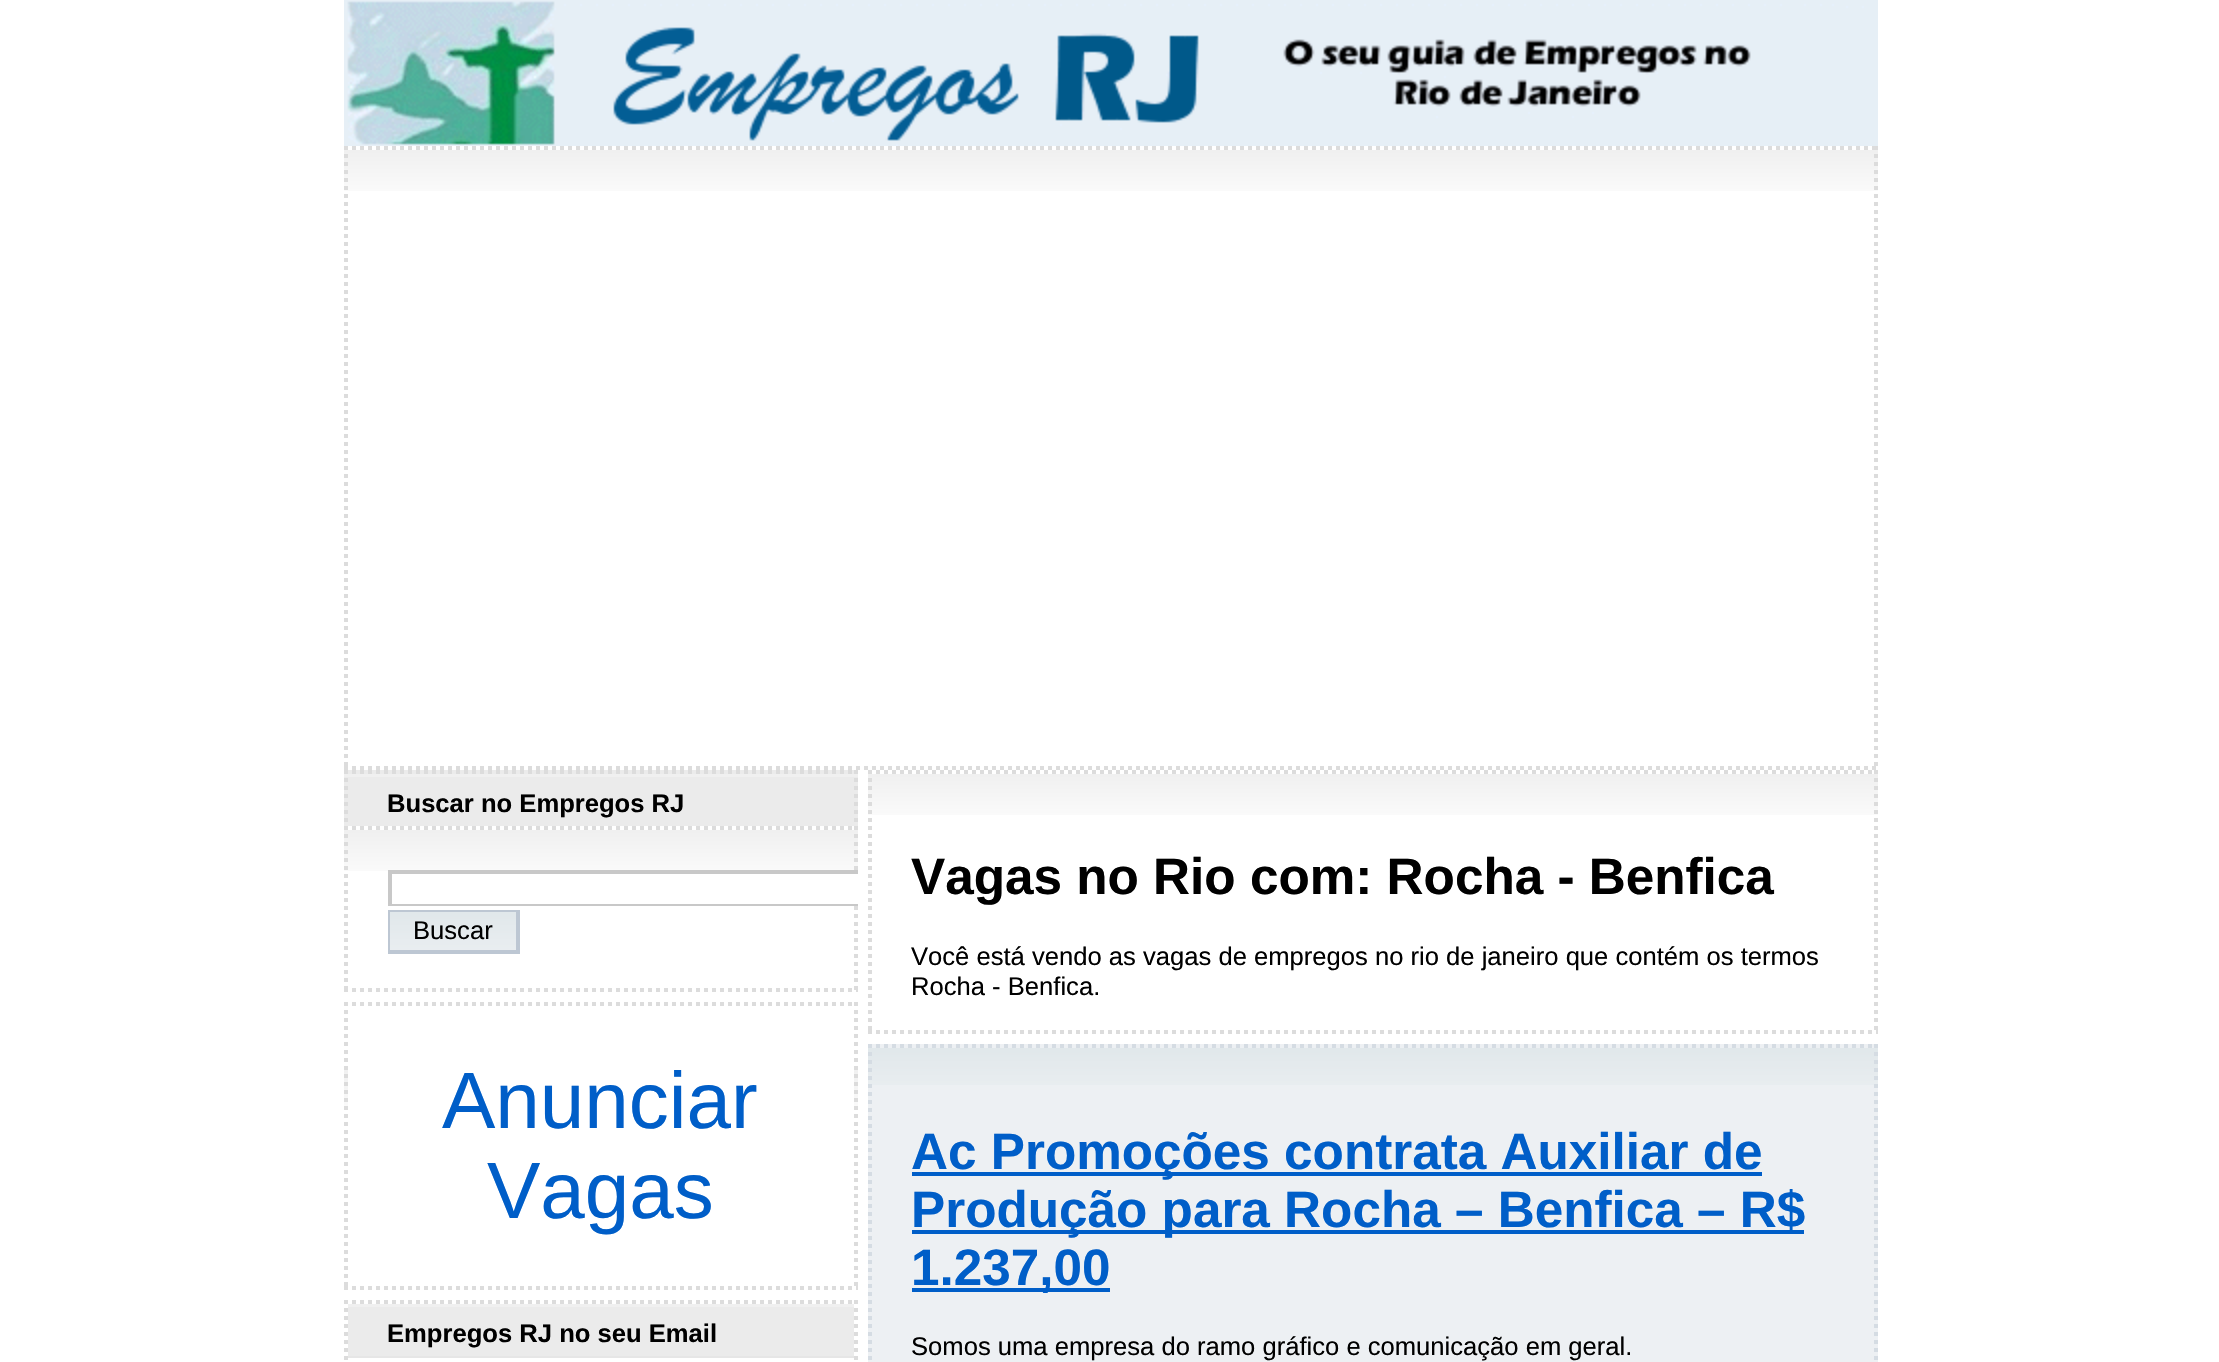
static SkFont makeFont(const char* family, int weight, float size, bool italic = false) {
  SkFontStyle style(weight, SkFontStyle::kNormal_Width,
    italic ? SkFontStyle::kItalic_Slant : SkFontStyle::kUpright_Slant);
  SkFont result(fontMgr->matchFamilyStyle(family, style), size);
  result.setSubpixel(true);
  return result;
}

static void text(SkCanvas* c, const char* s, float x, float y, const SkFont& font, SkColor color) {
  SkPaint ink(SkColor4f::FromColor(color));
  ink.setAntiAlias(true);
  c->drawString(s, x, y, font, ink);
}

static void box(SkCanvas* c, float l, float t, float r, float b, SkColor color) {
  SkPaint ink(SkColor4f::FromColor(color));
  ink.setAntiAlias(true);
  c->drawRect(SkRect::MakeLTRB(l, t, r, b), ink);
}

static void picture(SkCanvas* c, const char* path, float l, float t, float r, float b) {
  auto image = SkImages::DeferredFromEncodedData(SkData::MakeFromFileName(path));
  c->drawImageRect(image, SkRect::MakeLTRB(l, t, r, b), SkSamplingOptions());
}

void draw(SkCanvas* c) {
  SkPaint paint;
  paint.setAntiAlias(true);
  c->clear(0xffffffff);
  box(c, 344, 0, 1878, 146, 0xffe6eff6);
  picture(c, "img_01.png", 347, 1, 1864, 146);
  picture(c, "img_02.png", 344, 150, 1878, 191);
  paint.setStyle(SkPaint::kStroke_Style);
  paint.setStrokeWidth(4);
  paint.setColor(0xffdcdcdc);
  paint.setPathEffect(SkDashPathEffect::Make({{4, 4}}, 0));
  c->drawPath(SkPathBuilder().moveTo(344, 148).lineTo(1878, 148).detach(), paint);
  paint.setPathEffect(nullptr);
  paint.setPathEffect(SkDashPathEffect::Make({{4, 4}}, 0));
  c->drawPath(SkPathBuilder().moveTo(1876, 146).lineTo(1876, 770).detach(), paint);
  paint.setPathEffect(nullptr);
  paint.setPathEffect(SkDashPathEffect::Make({{4, 4}}, 0));
  c->drawPath(SkPathBuilder().moveTo(344, 768).lineTo(1878, 768).detach(), paint);
  paint.setPathEffect(nullptr);
  paint.setPathEffect(SkDashPathEffect::Make({{4, 4}}, 0));
  c->drawPath(SkPathBuilder().moveTo(346, 146).lineTo(346, 770).detach(), paint);
  paint.setPathEffect(nullptr);
  box(c, 344, 770, 858, 826, 0xffebebeb);
  box(c, 344, 774, 858, 777, 0xfff0f0f0);
  paint.setPathEffect(SkDashPathEffect::Make({{4, 4}}, 0));
  c->drawPath(SkPathBuilder().moveTo(344, 772).lineTo(858, 772).detach(), paint);
  paint.setPathEffect(nullptr);
  paint.setPathEffect(SkDashPathEffect::Make({{4, 4}}, 0));
  c->drawPath(SkPathBuilder().moveTo(856, 770).lineTo(856, 826).detach(), paint);
  paint.setPathEffect(nullptr);
  paint.setPathEffect(SkDashPathEffect::Make({{4, 4}}, 0));
  c->drawPath(SkPathBuilder().moveTo(346, 770).lineTo(346, 826).detach(), paint);
  paint.setPathEffect(nullptr);
  SkFont face1 = makeFont("Liberation Sans", 700, 25.6f);
  text(c, "Buscar no Empregos RJ", 387, 812, face1, 0xff000000);
  picture(c, "img_03.png", 344, 830, 858, 871);
  paint.setPathEffect(SkDashPathEffect::Make({{4, 4}}, 0));
  c->drawPath(SkPathBuilder().moveTo(344, 828).lineTo(858, 828).detach(), paint);
  paint.setPathEffect(nullptr);
  paint.setPathEffect(SkDashPathEffect::Make({{4, 4}}, 0));
  c->drawPath(SkPathBuilder().moveTo(856, 826).lineTo(856, 992).detach(), paint);
  paint.setPathEffect(nullptr);
  paint.setPathEffect(SkDashPathEffect::Make({{4, 4}}, 0));
  c->drawPath(SkPathBuilder().moveTo(344, 990).lineTo(858, 990).detach(), paint);
  paint.setPathEffect(nullptr);
  paint.setPathEffect(SkDashPathEffect::Make({{4, 4}}, 0));
  c->drawPath(SkPathBuilder().moveTo(346, 826).lineTo(346, 992).detach(), paint);
  paint.setPathEffect(nullptr);
  box(c, 854, 874, 858, 902, 0xffffffff);
  box(c, 388, 870, 858, 874, 0xffc8c8c8);
  box(c, 388, 904, 858, 906, 0xffc8c8c8);
  box(c, 388, 870, 392, 906, 0xffc8c8c8);
  picture(c, "img_04.png", 390, 912, 516, 950);
  box(c, 388, 910, 520, 912, 0xffbdc7d3);
  box(c, 516, 910, 520, 954, 0xffbdc7d3);
  box(c, 388, 950, 520, 954, 0xffbdc7d3);
  box(c, 388, 910, 390, 954, 0xffbdc7d3);
  SkFont face2 = makeFont("Liberation Sans", 400, 25.6f);
  text(c, "Buscar", 413, 939, face2, 0xff000000);
  picture(c, "img_05.png", 344, 1070, 858, 1106);
  paint.setPathEffect(SkDashPathEffect::Make({{4, 4}}, 0));
  c->drawPath(SkPathBuilder().moveTo(344, 1004).lineTo(858, 1004).detach(), paint);
  paint.setPathEffect(nullptr);
  paint.setPathEffect(SkDashPathEffect::Make({{4, 4}}, 0));
  c->drawPath(SkPathBuilder().moveTo(856, 1002).lineTo(856, 1290).detach(), paint);
  paint.setPathEffect(nullptr);
  paint.setPathEffect(SkDashPathEffect::Make({{4, 4}}, 0));
  c->drawPath(SkPathBuilder().moveTo(344, 1288).lineTo(858, 1288).detach(), paint);
  paint.setPathEffect(nullptr);
  paint.setPathEffect(SkDashPathEffect::Make({{4, 4}}, 0));
  c->drawPath(SkPathBuilder().moveTo(346, 1002).lineTo(346, 1290).detach(), paint);
  paint.setPathEffect(nullptr);
  box(c, 348, 1070, 854, 1106, 0xffffffff);
  SkFont face3 = makeFont("Liberation Sans", 400, 80);
  text(c, "Anunciar", 442, 1128, face3, 0xff005ec8);
  text(c, "Vagas", 487, 1218, face3, 0xff005ec8);
  paint.setPathEffect(SkDashPathEffect::Make({{4, 4}}, 0));
  c->drawPath(SkPathBuilder().moveTo(344, 1302).lineTo(858, 1302).detach(), paint);
  paint.setPathEffect(nullptr);
  paint.setPathEffect(SkDashPathEffect::Make({{4, 4}}, 0));
  c->drawPath(SkPathBuilder().moveTo(856, 1300).lineTo(856, 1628).detach(), paint);
  paint.setPathEffect(nullptr);
  paint.setPathEffect(SkDashPathEffect::Make({{4, 4}}, 0));
  c->drawPath(SkPathBuilder().moveTo(346, 1300).lineTo(346, 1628).detach(), paint);
  paint.setPathEffect(nullptr);
  box(c, 348, 1307, 854, 1356, 0xffebebeb);
  box(c, 348, 1304, 854, 1307, 0xfff0f0f0);
  box(c, 348, 1356, 854, 1358, 0xffe6e6e6);
  text(c, "Empregos RJ no seu Email", 387, 1342, face1, 0xff000000);
  picture(c, "img_06.png", 868, 774, 1878, 815);
  paint.setPathEffect(SkDashPathEffect::Make({{4, 4}}, 0));
  c->drawPath(SkPathBuilder().moveTo(868, 772).lineTo(1878, 772).detach(), paint);
  paint.setPathEffect(nullptr);
  paint.setPathEffect(SkDashPathEffect::Make({{4, 4}}, 0));
  c->drawPath(SkPathBuilder().moveTo(1876, 770).lineTo(1876, 1034).detach(), paint);
  paint.setPathEffect(nullptr);
  paint.setPathEffect(SkDashPathEffect::Make({{4, 4}}, 0));
  c->drawPath(SkPathBuilder().moveTo(868, 1032).lineTo(1878, 1032).detach(), paint);
  paint.setPathEffect(nullptr);
  paint.setPathEffect(SkDashPathEffect::Make({{4, 4}}, 0));
  c->drawPath(SkPathBuilder().moveTo(870, 770).lineTo(870, 1034).detach(), paint);
  paint.setPathEffect(nullptr);
  SkFont face4 = makeFont("Liberation Sans", 700, 51.25f);
  text(c, "Vagas no Rio com: Rocha - Benfica", 911, 894, face4, 0xff000000);
  text(c, "Você está vendo as vagas de empregos no rio de janeiro que contém os termos", 911, 965, face2, 0xff000000);
  text(c, "Rocha - Benfica.", 911, 995, face2, 0xff000000);
  box(c, 868, 1044, 1878, 1362, 0xffedf0f3);
  picture(c, "img_07.png", 868, 1048, 1878, 1085);
  paint.setColor(0xffd5dce3);
  paint.setPathEffect(SkDashPathEffect::Make({{4, 4}}, 0));
  c->drawPath(SkPathBuilder().moveTo(868, 1046).lineTo(1878, 1046).detach(), paint);
  paint.setPathEffect(nullptr);
  paint.setPathEffect(SkDashPathEffect::Make({{4, 4}}, 0));
  c->drawPath(SkPathBuilder().moveTo(1876, 1044).lineTo(1876, 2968).detach(), paint);
  paint.setPathEffect(nullptr);
  paint.setPathEffect(SkDashPathEffect::Make({{4, 4}}, 0));
  c->drawPath(SkPathBuilder().moveTo(870, 1044).lineTo(870, 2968).detach(), paint);
  paint.setPathEffect(nullptr);
  box(c, 912, 1172, 1762, 1176, 0xff005ec8);
  text(c, "Ac Promoções contrata Auxiliar de", 911, 1169, face4, 0xff005ec8);
  box(c, 912, 1230, 1804, 1234, 0xff005ec8);
  text(c, "Produção para Rocha – Benfica – R$", 911, 1227, face4, 0xff005ec8);
  box(c, 912, 1288, 1110, 1292, 0xff005ec8);
  text(c, "1.237,00", 911, 1285, face4, 0xff005ec8);
  text(c, "Somos uma empresa do ramo gráfico e comunicação em geral.", 911, 1355, face2, 0xff000000);
}
